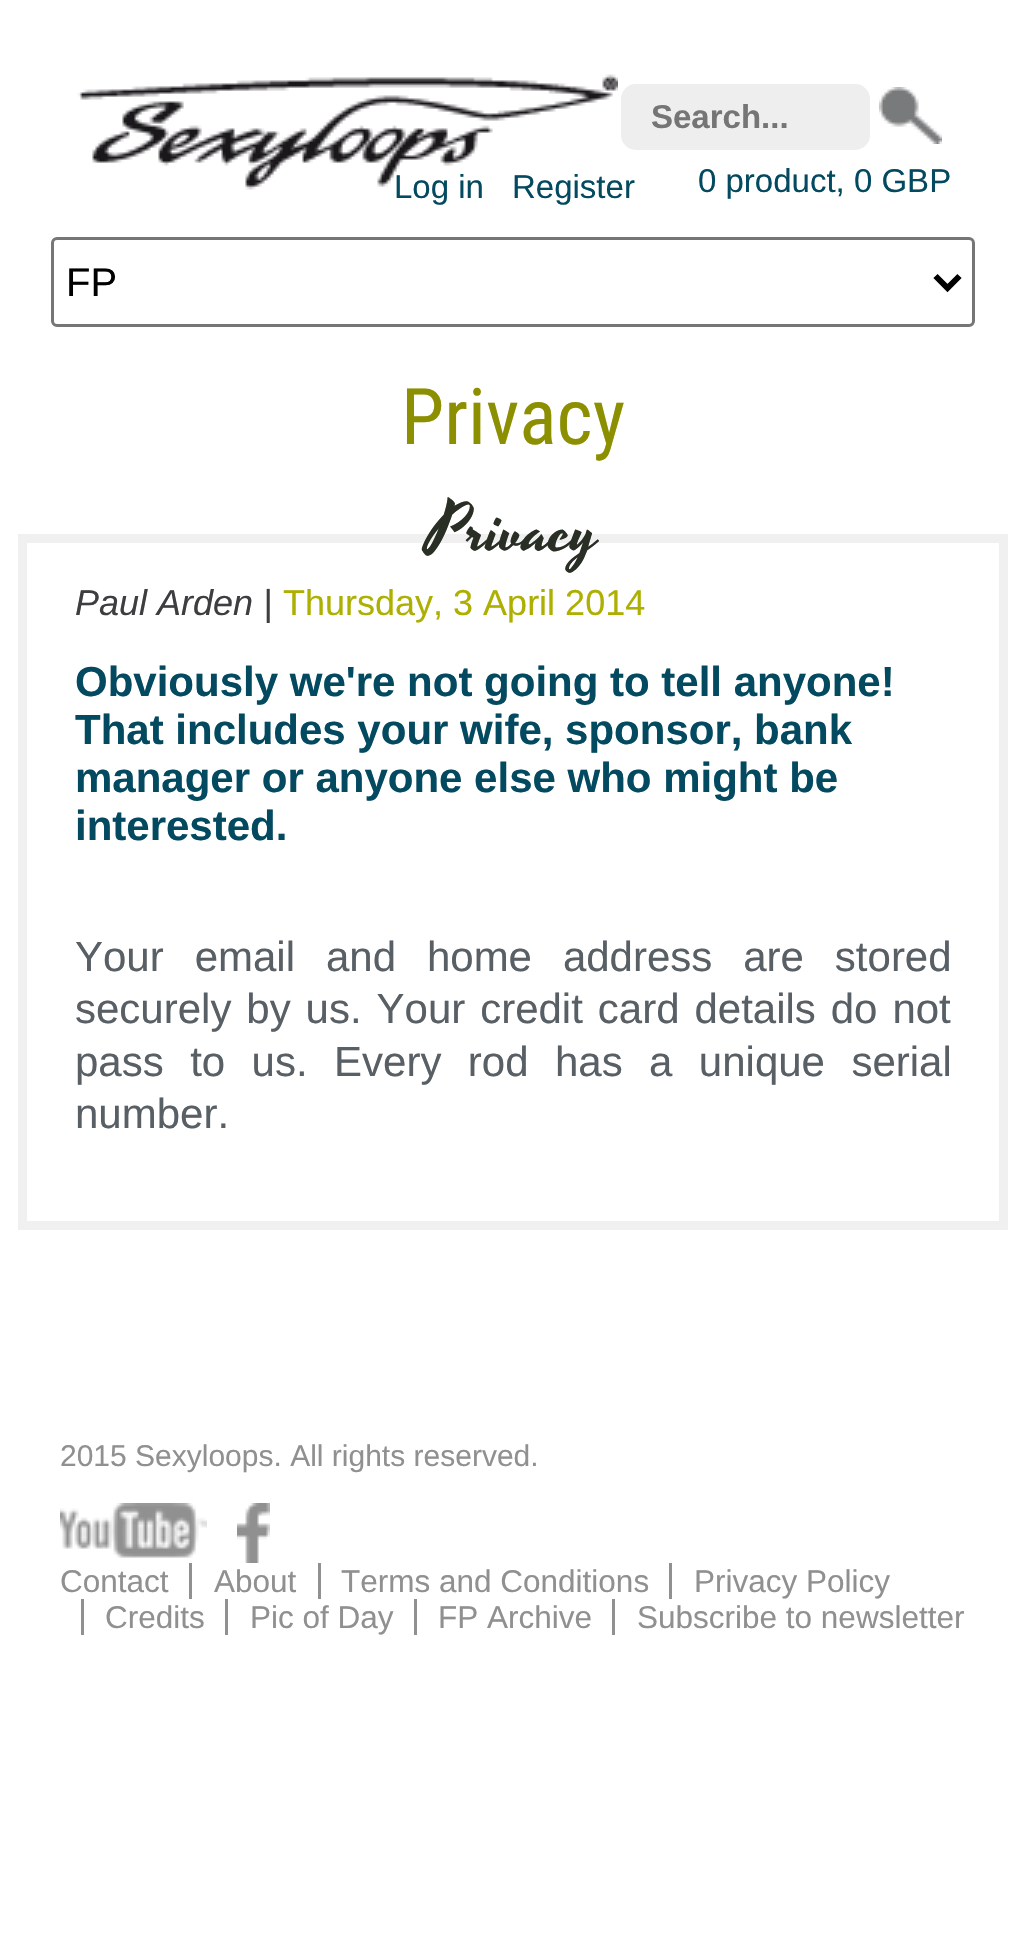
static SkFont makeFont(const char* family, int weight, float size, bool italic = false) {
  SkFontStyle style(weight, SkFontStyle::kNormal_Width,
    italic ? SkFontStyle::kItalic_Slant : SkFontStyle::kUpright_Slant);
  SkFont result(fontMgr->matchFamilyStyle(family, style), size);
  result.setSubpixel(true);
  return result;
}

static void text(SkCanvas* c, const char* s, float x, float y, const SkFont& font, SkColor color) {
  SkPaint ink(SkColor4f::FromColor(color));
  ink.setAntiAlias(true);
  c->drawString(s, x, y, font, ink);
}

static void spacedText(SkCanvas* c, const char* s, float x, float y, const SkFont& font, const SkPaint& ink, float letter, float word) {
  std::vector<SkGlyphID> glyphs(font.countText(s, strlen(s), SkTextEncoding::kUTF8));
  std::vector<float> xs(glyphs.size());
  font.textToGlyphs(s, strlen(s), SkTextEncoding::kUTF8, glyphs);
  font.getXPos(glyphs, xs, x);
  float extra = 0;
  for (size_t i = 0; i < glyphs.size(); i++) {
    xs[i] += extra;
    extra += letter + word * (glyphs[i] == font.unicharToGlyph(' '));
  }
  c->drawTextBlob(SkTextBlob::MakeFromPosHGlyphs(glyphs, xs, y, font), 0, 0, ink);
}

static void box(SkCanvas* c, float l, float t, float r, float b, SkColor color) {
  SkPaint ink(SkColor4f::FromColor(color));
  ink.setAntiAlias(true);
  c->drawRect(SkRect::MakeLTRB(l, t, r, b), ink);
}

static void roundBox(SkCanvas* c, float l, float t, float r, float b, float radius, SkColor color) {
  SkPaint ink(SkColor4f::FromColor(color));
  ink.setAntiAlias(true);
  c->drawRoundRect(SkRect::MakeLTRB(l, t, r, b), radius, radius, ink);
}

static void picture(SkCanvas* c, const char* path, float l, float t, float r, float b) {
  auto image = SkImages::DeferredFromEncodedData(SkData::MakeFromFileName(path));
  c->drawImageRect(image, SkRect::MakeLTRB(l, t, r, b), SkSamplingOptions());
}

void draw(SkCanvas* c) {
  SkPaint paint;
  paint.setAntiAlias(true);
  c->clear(0xffffffff);
  picture(c, "img_01.png", 78, 74, 618, 190);
  roundBox(c, 621, 84, 870, 150, 15, 0xffeeeeee);
  SkFont face1 = makeFont("Liberation Sans", 700, 33);
  text(c, "Search...", 651, 128, face1, 0xff757575);
  picture(c, "img_02.png", 879, 87, 942, 144);
  SkFont face2 = makeFont("Liberation Sans", 400, 33);
  text(c, "Log in", 394, 198, face2, 0xff034960);
  text(c, "Register", 512, 198, face2, 0xff034960);
  text(c, "0 product, 0 GBP", 698, 192, face2, 0xff034960);
  paint.setStyle(SkPaint::kStroke_Style);
  paint.setStrokeWidth(3);
  paint.setColor(0xff767676);
  c->drawRoundRect(SkRect::MakeLTRB(52.5f, 238.5f, 973.5f, 325.5f), 4.5f, 4.5f, paint);
  paint.setStrokeWidth(6);
  paint.setColor(0xff000000);
  c->drawPath(SkPathBuilder().moveTo(935.5f, 276).lineTo(947.5f, 288).lineTo(959.5f, 276).detach(), paint);
  SkFont face3 = makeFont("Liberation Sans", 400, 40);
  text(c, "FP", 66, 296, face3, 0xff000000);
  SkFont face4 = makeFont("Roboto Condensed", 400, 78);
  text(c, "Privacy", 401, 444, face4, 0xff8c8f00);
  paint.setStrokeWidth(9);
  paint.setColor(0xfff0f0f0);
  c->drawRect(SkRect::MakeLTRB(22.5f, 538.5f, 1003.5f, 1225.5f), paint);
  SkFont face5 = makeFont("Yesteryear", 400, 66);
  text(c, "Privacy", 427, 549, face5, 0xff2a2f25);
  SkFont face6 = makeFont("Liberation Sans", 400, 36, true);
  text(c, "Paul Arden |", 75, 615, face6, 0xff3d3e40);
  SkFont face7 = makeFont("Liberation Sans", 400, 36);
  text(c, "Thursday, 3 April 2014", 283, 615, face7, 0xffadb000);
  SkFont face8 = makeFont("Liberation Sans", 700, 42);
  text(c, "Obviously we're not going to tell anyone!", 75, 696, face8, 0xff034960);
  text(c, "That includes your wife, sponsor, bank", 75, 744, face8, 0xff034960);
  text(c, "manager or anyone else who might be", 75, 792, face8, 0xff034960);
  text(c, "interested.", 75, 840, face8, 0xff034960);
  SkFont face9 = makeFont("Liberation Sans", 400, 42);
  paint.setStyle(SkPaint::kFill_Style);
  paint.setColor(0xff585f65);
  spacedText(c, "Your email and home address are stored", 75, 971, face9, paint, 0, 19.25f);
  spacedText(c, "securely by us. Your credit card details do not", 75, 1023, face9, paint, 0, 3.25f);
  spacedText(c, "pass to us. Every rod has a unique serial", 75, 1076, face9, paint, 0, 14.75f);
  text(c, "number.", 75, 1128, face9, 0xff585f65);
  SkFont face10 = makeFont("Liberation Sans", 400, 30);
  text(c, "2015 Sexyloops. All rights reserved.", 60, 1466, face10, 0xff909090);
  picture(c, "img_03.png", 60, 1503, 207, 1558);
  picture(c, "img_04.png", 237, 1503, 270, 1563);
  SkFont face11 = makeFont("Liberation Sans", 400, 31.5f);
  text(c, "Contact", 60, 1592, face11, 0xff909090);
  box(c, 189, 1563, 192, 1599, 0xff909090);
  text(c, "About", 214, 1592, face11, 0xff909090);
  box(c, 318, 1563, 321, 1599, 0xff909090);
  text(c, "Terms and Conditions", 341, 1592, face11, 0xff909090);
  box(c, 669, 1563, 672, 1599, 0xff909090);
  text(c, "Privacy Policy", 694, 1592, face11, 0xff909090);
  box(c, 81, 1599, 84, 1635, 0xff909090);
  text(c, "Credits", 105, 1628, face11, 0xff909090);
  box(c, 225, 1599, 228, 1635, 0xff909090);
  text(c, "Pic of Day", 250, 1628, face11, 0xff909090);
  box(c, 414, 1599, 417, 1635, 0xff909090);
  text(c, "FP Archive", 438, 1628, face11, 0xff909090);
  box(c, 612, 1599, 615, 1635, 0xff909090);
  text(c, "Subscribe to newsletter", 637, 1628, face11, 0xff909090);
}
